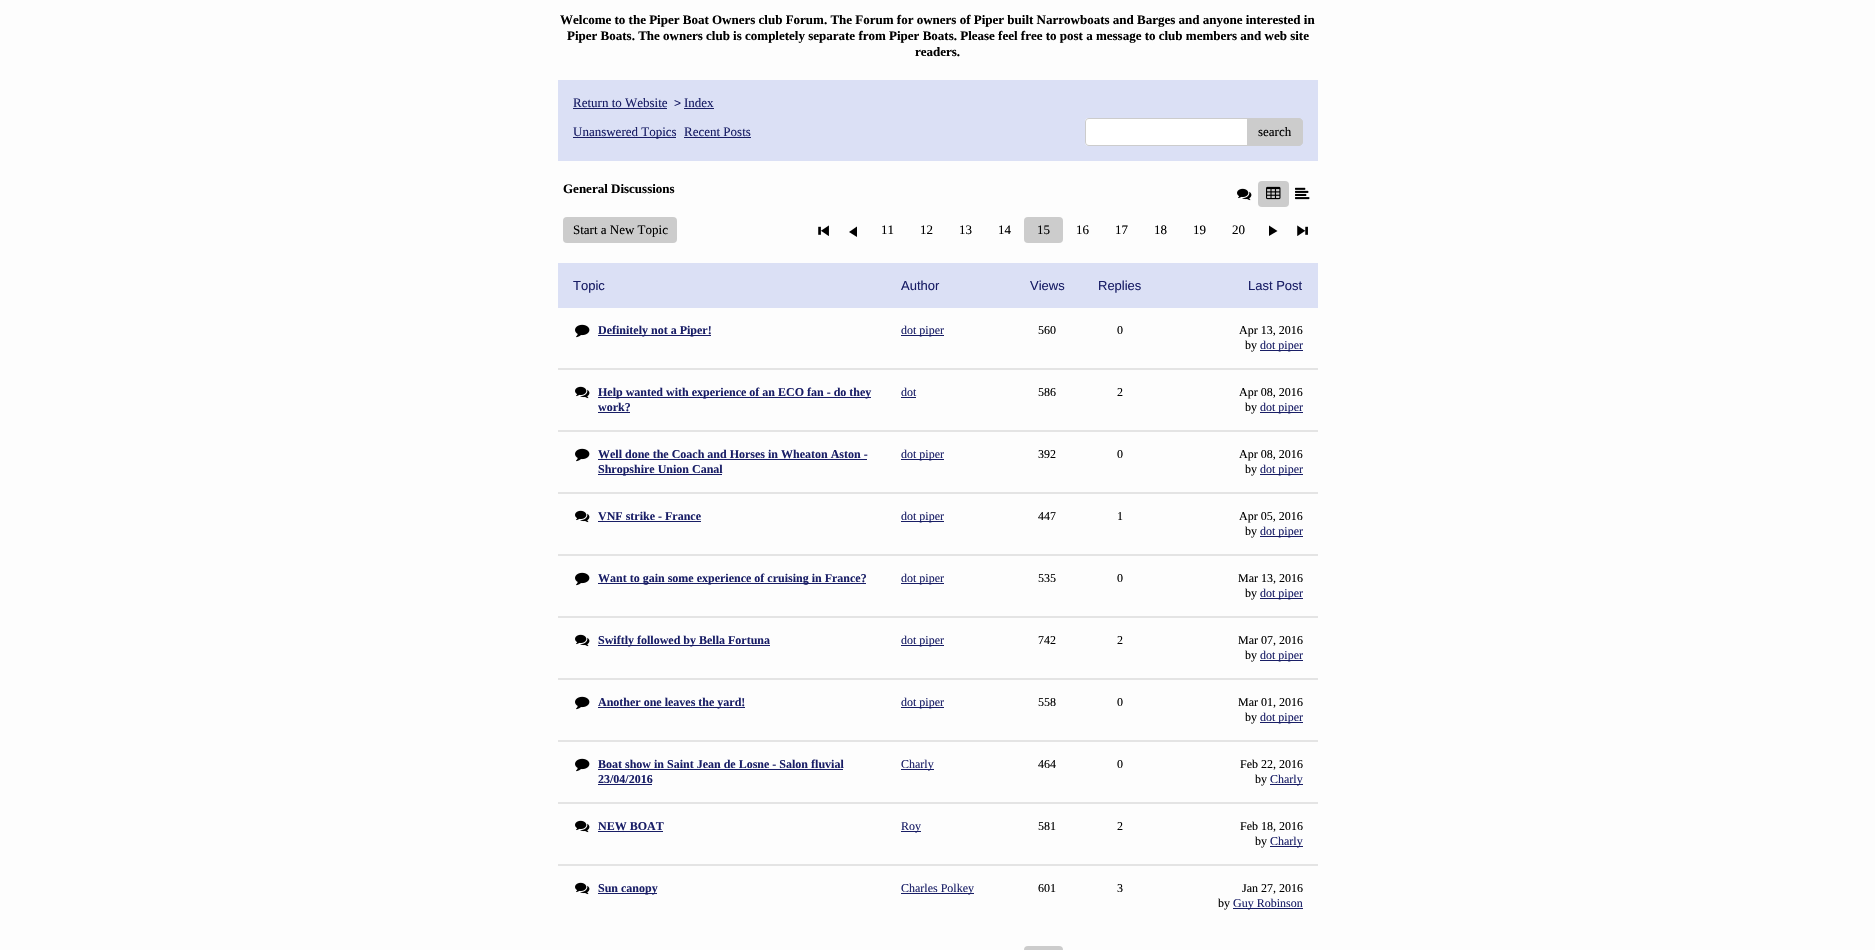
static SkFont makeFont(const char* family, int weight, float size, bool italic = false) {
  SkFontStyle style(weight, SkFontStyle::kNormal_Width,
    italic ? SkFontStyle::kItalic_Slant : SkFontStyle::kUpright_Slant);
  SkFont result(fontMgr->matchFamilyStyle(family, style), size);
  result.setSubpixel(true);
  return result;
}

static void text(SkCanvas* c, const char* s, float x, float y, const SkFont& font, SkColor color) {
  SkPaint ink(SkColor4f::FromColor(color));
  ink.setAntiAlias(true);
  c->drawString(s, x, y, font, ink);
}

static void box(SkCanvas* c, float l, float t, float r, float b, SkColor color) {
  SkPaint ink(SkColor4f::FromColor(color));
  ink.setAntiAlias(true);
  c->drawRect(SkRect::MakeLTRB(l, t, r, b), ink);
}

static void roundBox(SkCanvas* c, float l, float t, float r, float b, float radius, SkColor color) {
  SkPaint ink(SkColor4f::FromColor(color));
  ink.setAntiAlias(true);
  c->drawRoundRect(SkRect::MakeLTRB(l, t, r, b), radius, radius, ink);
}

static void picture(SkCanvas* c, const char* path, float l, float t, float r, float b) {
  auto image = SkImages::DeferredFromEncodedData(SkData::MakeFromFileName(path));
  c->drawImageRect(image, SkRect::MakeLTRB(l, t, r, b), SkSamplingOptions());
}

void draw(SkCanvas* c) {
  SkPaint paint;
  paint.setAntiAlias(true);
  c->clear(0xfffdfdfd);
  SkFont face1 = makeFont("Liberation Serif", 700, 13);
  text(c, "Welcome to the Piper Boat Owners club Forum. The Forum for owners of Piper built Narrowboats and Barges and anyone interested in", 560, 24, face1, 0xff000000);
  text(c, "Piper Boats. The owners club is completely separate from Piper Boats. Please feel free to post a message to club members and web site", 567, 40, face1, 0xff000000);
  text(c, "readers.", 915, 56, face1, 0xff000000);
  box(c, 558, 80, 1318, 161, 0xffdbe0f5);
  SkFont face2 = makeFont("Liberation Serif", 400, 13);
  text(c, "Return to Website", 573, 107, face2, 0xff191e66);
  box(c, 573, 108, 667, 109, 0xff191e66);
  SkFont face3 = makeFont("Liberation Sans", 400, 12);
  text(c, ">", 674, 107, face3, 0xff191e66);
  text(c, "Index", 684, 107, face2, 0xff191e66);
  box(c, 684, 108, 714, 109, 0xff191e66);
  box(c, 573, 137, 676, 138, 0xff191e66);
  text(c, "Unanswered Topics", 573, 136, face2, 0xff191e66);
  text(c, "Recent Posts", 684, 136, face2, 0xff191e66);
  box(c, 684, 137, 751, 138, 0xff191e66);
  roundBox(c, 1085, 118, 1293, 146, 4, 0xffffffff);
  paint.setColor(0xffcccccc);
  c->drawPath(SkPathBuilder(SkPathFillType::kEvenOdd).moveTo(1089, 118).lineTo(1289, 118).cubicTo(1291, 118, 1293, 120, 1293, 122).lineTo(1293, 142).cubicTo(1293, 144, 1291, 146, 1289, 146).lineTo(1089, 146).cubicTo(1087, 146, 1085, 144, 1085, 142).lineTo(1085, 122).cubicTo(1085, 120, 1087, 118, 1089, 118).close().moveTo(1089, 119).lineTo(1289, 119).cubicTo(1291, 119, 1293, 120, 1293, 122).lineTo(1293, 142).cubicTo(1293, 144, 1291, 145, 1289, 145).lineTo(1089, 145).cubicTo(1087, 145, 1086, 144, 1086, 142).lineTo(1086, 122).cubicTo(1086, 120, 1087, 119, 1089, 119).close().detach(), paint);
  c->drawPath(SkPathBuilder().moveTo(1247.5f, 118.5f).lineTo(1299, 118.5f).cubicTo(1301, 118.5f, 1302.5f, 120, 1302.5f, 122).lineTo(1302.5f, 142).cubicTo(1302.5f, 144, 1301, 145.5f, 1299, 145.5f).lineTo(1247.5f, 145.5f).close().detach(), paint);
  paint.setStyle(SkPaint::kStroke_Style);
  paint.setStrokeWidth(1);
  c->drawPath(SkPathBuilder().moveTo(1247.5f, 118.5f).lineTo(1299, 118.5f).cubicTo(1301, 118.5f, 1302.5f, 120, 1302.5f, 122).lineTo(1302.5f, 142).cubicTo(1302.5f, 144, 1301, 145.5f, 1299, 145.5f).lineTo(1247.5f, 145.5f).close().detach(), paint);
  text(c, "search", 1258, 136, face2, 0xff000000);
  text(c, "General Discussions", 563, 193, face1, 0xff000000);
  picture(c, "img_01.png", 1237, 188, 1252, 201);
  roundBox(c, 1258, 181, 1289, 207, 4, 0xffcccccc);
  picture(c, "img_02.png", 1266, 186, 1281, 200);
  picture(c, "img_03.png", 1295, 187, 1310, 200);
  roundBox(c, 563, 217, 677, 243, 4, 0xffcccccc);
  text(c, "Start a New Topic", 573, 234, face2, 0xff000000);
  picture(c, "img_04.png", 818, 225, 829, 236);
  paint.setStyle(SkPaint::kFill_Style);
  paint.setColor(0xff000000);
  c->drawPath(SkPathBuilder().moveTo(857, 237).lineTo(849, 232).lineTo(857, 226.5f).close().detach(), paint);
  text(c, "11", 881, 234, face2, 0xff000000);
  text(c, "12", 920, 234, face2, 0xff000000);
  text(c, "13", 959, 234, face2, 0xff000000);
  text(c, "14", 998, 234, face2, 0xff000000);
  roundBox(c, 1024, 217, 1063, 243, 4, 0xffcccccc);
  text(c, "15", 1037, 234, face2, 0xff000000);
  text(c, "16", 1076, 234, face2, 0xff000000);
  text(c, "17", 1115, 234, face2, 0xff000000);
  text(c, "18", 1154, 234, face2, 0xff000000);
  text(c, "19", 1193, 234, face2, 0xff000000);
  text(c, "20", 1232, 234, face2, 0xff000000);
  c->drawPath(SkPathBuilder().moveTo(1269, 225.5f).lineTo(1277.5f, 231).lineTo(1269, 236).close().detach(), paint);
  picture(c, "img_05.png", 1297, 225, 1308, 236);
  box(c, 558, 263, 1318, 308, 0xffdbe0f5);
  SkFont face4 = makeFont("Liberation Sans", 400, 13);
  text(c, "Topic", 573, 290, face4, 0xff191e66);
  text(c, "Author", 901, 290, face4, 0xff191e66);
  text(c, "Views", 1030, 290, face4, 0xff191e66);
  text(c, "Replies", 1098, 290, face4, 0xff191e66);
  text(c, "Last Post", 1248, 290, face4, 0xff191e66);
  box(c, 558, 368, 1318, 370, 0xffe4e4e4);
  picture(c, "img_06.png", 575, 324, 590, 338);
  box(c, 598, 335, 711, 336, 0xff191e66);
  SkFont face5 = makeFont("Liberation Serif", 700, 12);
  text(c, "Definitely not a Piper!", 598, 334, face5, 0xff191e66);
  box(c, 901, 335, 944, 336, 0xff191e66);
  SkFont face6 = makeFont("Liberation Serif", 400, 12);
  text(c, "dot piper", 901, 334, face6, 0xff191e66);
  text(c, "560", 1038, 334, face6, 0xff000000);
  text(c, "0", 1117, 334, face6, 0xff000000);
  text(c, "Apr 13, 2016", 1239, 334, face6, 0xff000000);
  text(c, "by", 1245, 349, face6, 0xff000000);
  box(c, 1260, 350, 1303, 351, 0xff191e66);
  text(c, "dot piper", 1260, 349, face6, 0xff191e66);
  box(c, 558, 430, 1318, 432, 0xffe4e4e4);
  picture(c, "img_01.png", 575, 386, 590, 399);
  box(c, 598, 397, 871, 398, 0xff191e66);
  text(c, "Help wanted with experience of an ECO fan - do they", 598, 396, face5, 0xff191e66);
  text(c, "work?", 598, 411, face5, 0xff191e66);
  box(c, 598, 412, 630, 413, 0xff191e66);
  text(c, "dot", 901, 396, face6, 0xff191e66);
  box(c, 901, 397, 916, 398, 0xff191e66);
  text(c, "586", 1038, 396, face6, 0xff000000);
  text(c, "2", 1117, 396, face6, 0xff000000);
  text(c, "Apr 08, 2016", 1239, 396, face6, 0xff000000);
  text(c, "by", 1245, 411, face6, 0xff000000);
  box(c, 1260, 412, 1303, 413, 0xff191e66);
  text(c, "dot piper", 1260, 411, face6, 0xff191e66);
  box(c, 558, 492, 1318, 494, 0xffe4e4e4);
  picture(c, "img_06.png", 575, 448, 590, 462);
  text(c, "Well done the Coach and Horses in Wheaton Aston -", 598, 458, face5, 0xff191e66);
  box(c, 598, 459, 867, 460, 0xff191e66);
  box(c, 598, 474, 722, 475, 0xff191e66);
  text(c, "Shropshire Union Canal", 598, 473, face5, 0xff191e66);
  box(c, 901, 459, 944, 460, 0xff191e66);
  text(c, "dot piper", 901, 458, face6, 0xff191e66);
  text(c, "392", 1038, 458, face6, 0xff000000);
  text(c, "0", 1117, 458, face6, 0xff000000);
  text(c, "Apr 08, 2016", 1239, 458, face6, 0xff000000);
  text(c, "by", 1245, 473, face6, 0xff000000);
  box(c, 1260, 474, 1303, 475, 0xff191e66);
  text(c, "dot piper", 1260, 473, face6, 0xff191e66);
  box(c, 558, 554, 1318, 556, 0xffe4e4e4);
  picture(c, "img_01.png", 575, 510, 590, 523);
  text(c, "VNF strike - France", 598, 520, face5, 0xff191e66);
  box(c, 598, 521, 701, 522, 0xff191e66);
  box(c, 901, 521, 944, 522, 0xff191e66);
  text(c, "dot piper", 901, 520, face6, 0xff191e66);
  text(c, "447", 1038, 520, face6, 0xff000000);
  text(c, "1", 1117, 520, face6, 0xff000000);
  text(c, "Apr 05, 2016", 1239, 520, face6, 0xff000000);
  text(c, "by", 1245, 535, face6, 0xff000000);
  box(c, 1260, 536, 1303, 537, 0xff191e66);
  text(c, "dot piper", 1260, 535, face6, 0xff191e66);
  box(c, 558, 616, 1318, 618, 0xffe4e4e4);
  picture(c, "img_06.png", 575, 572, 590, 586);
  box(c, 598, 583, 866, 584, 0xff191e66);
  text(c, "Want to gain some experience of cruising in France?", 598, 582, face5, 0xff191e66);
  box(c, 901, 583, 944, 584, 0xff191e66);
  text(c, "dot piper", 901, 582, face6, 0xff191e66);
  text(c, "535", 1038, 582, face6, 0xff000000);
  text(c, "0", 1117, 582, face6, 0xff000000);
  text(c, "Mar 13, 2016", 1238, 582, face6, 0xff000000);
  text(c, "by", 1245, 597, face6, 0xff000000);
  box(c, 1260, 598, 1303, 599, 0xff191e66);
  text(c, "dot piper", 1260, 597, face6, 0xff191e66);
  box(c, 558, 678, 1318, 680, 0xffe4e4e4);
  picture(c, "img_01.png", 575, 634, 590, 647);
  box(c, 598, 645, 770, 646, 0xff191e66);
  text(c, "Swiftly followed by Bella Fortuna", 598, 644, face5, 0xff191e66);
  box(c, 901, 645, 944, 646, 0xff191e66);
  text(c, "dot piper", 901, 644, face6, 0xff191e66);
  text(c, "742", 1038, 644, face6, 0xff000000);
  text(c, "2", 1117, 644, face6, 0xff000000);
  text(c, "Mar 07, 2016", 1238, 644, face6, 0xff000000);
  text(c, "by", 1245, 659, face6, 0xff000000);
  box(c, 1260, 660, 1303, 661, 0xff191e66);
  text(c, "dot piper", 1260, 659, face6, 0xff191e66);
  box(c, 558, 740, 1318, 742, 0xffe4e4e4);
  picture(c, "img_06.png", 575, 696, 590, 710);
  box(c, 598, 707, 745, 708, 0xff191e66);
  text(c, "Another one leaves the yard!", 598, 706, face5, 0xff191e66);
  box(c, 901, 707, 944, 708, 0xff191e66);
  text(c, "dot piper", 901, 706, face6, 0xff191e66);
  text(c, "558", 1038, 706, face6, 0xff000000);
  text(c, "0", 1117, 706, face6, 0xff000000);
  text(c, "Mar 01, 2016", 1238, 706, face6, 0xff000000);
  text(c, "by", 1245, 721, face6, 0xff000000);
  box(c, 1260, 722, 1303, 723, 0xff191e66);
  text(c, "dot piper", 1260, 721, face6, 0xff191e66);
  box(c, 558, 802, 1318, 804, 0xffe4e4e4);
  picture(c, "img_06.png", 575, 758, 590, 772);
  text(c, "Boat show in Saint Jean de Losne - Salon fluvial", 598, 768, face5, 0xff191e66);
  box(c, 598, 769, 843, 770, 0xff191e66);
  text(c, "23/04/2016", 598, 783, face5, 0xff191e66);
  box(c, 598, 784, 652, 785, 0xff191e66);
  box(c, 901, 769, 934, 770, 0xff191e66);
  text(c, "Charly", 901, 768, face6, 0xff191e66);
  text(c, "464", 1038, 768, face6, 0xff000000);
  text(c, "0", 1117, 768, face6, 0xff000000);
  text(c, "Feb 22, 2016", 1240, 768, face6, 0xff000000);
  text(c, "by", 1255, 783, face6, 0xff000000);
  box(c, 1270, 784, 1303, 785, 0xff191e66);
  text(c, "Charly", 1270, 783, face6, 0xff191e66);
  box(c, 558, 864, 1318, 866, 0xffe4e4e4);
  picture(c, "img_01.png", 575, 820, 590, 833);
  text(c, "NEW BOAT", 598, 830, face5, 0xff191e66);
  box(c, 598, 831, 663, 832, 0xff191e66);
  box(c, 901, 831, 921, 832, 0xff191e66);
  text(c, "Roy", 901, 830, face6, 0xff191e66);
  text(c, "581", 1038, 830, face6, 0xff000000);
  text(c, "2", 1117, 830, face6, 0xff000000);
  text(c, "Feb 18, 2016", 1240, 830, face6, 0xff000000);
  text(c, "by", 1255, 845, face6, 0xff000000);
  box(c, 1270, 846, 1303, 847, 0xff191e66);
  text(c, "Charly", 1270, 845, face6, 0xff191e66);
  picture(c, "img_01.png", 575, 882, 590, 895);
  box(c, 598, 893, 657, 894, 0xff191e66);
  text(c, "Sun canopy", 598, 892, face5, 0xff191e66);
  box(c, 901, 893, 974, 894, 0xff191e66);
  text(c, "Charles Polkey", 901, 892, face6, 0xff191e66);
  text(c, "601", 1038, 892, face6, 0xff000000);
  text(c, "3", 1117, 892, face6, 0xff000000);
  text(c, "Jan 27, 2016", 1242, 892, face6, 0xff000000);
  text(c, "by", 1218, 907, face6, 0xff000000);
  box(c, 1233, 908, 1303, 909, 0xff191e66);
  text(c, "Guy Robinson", 1233, 907, face6, 0xff191e66);
  roundBox(c, 1024, 946, 1063, 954, 4, 0xffcccccc);
}
